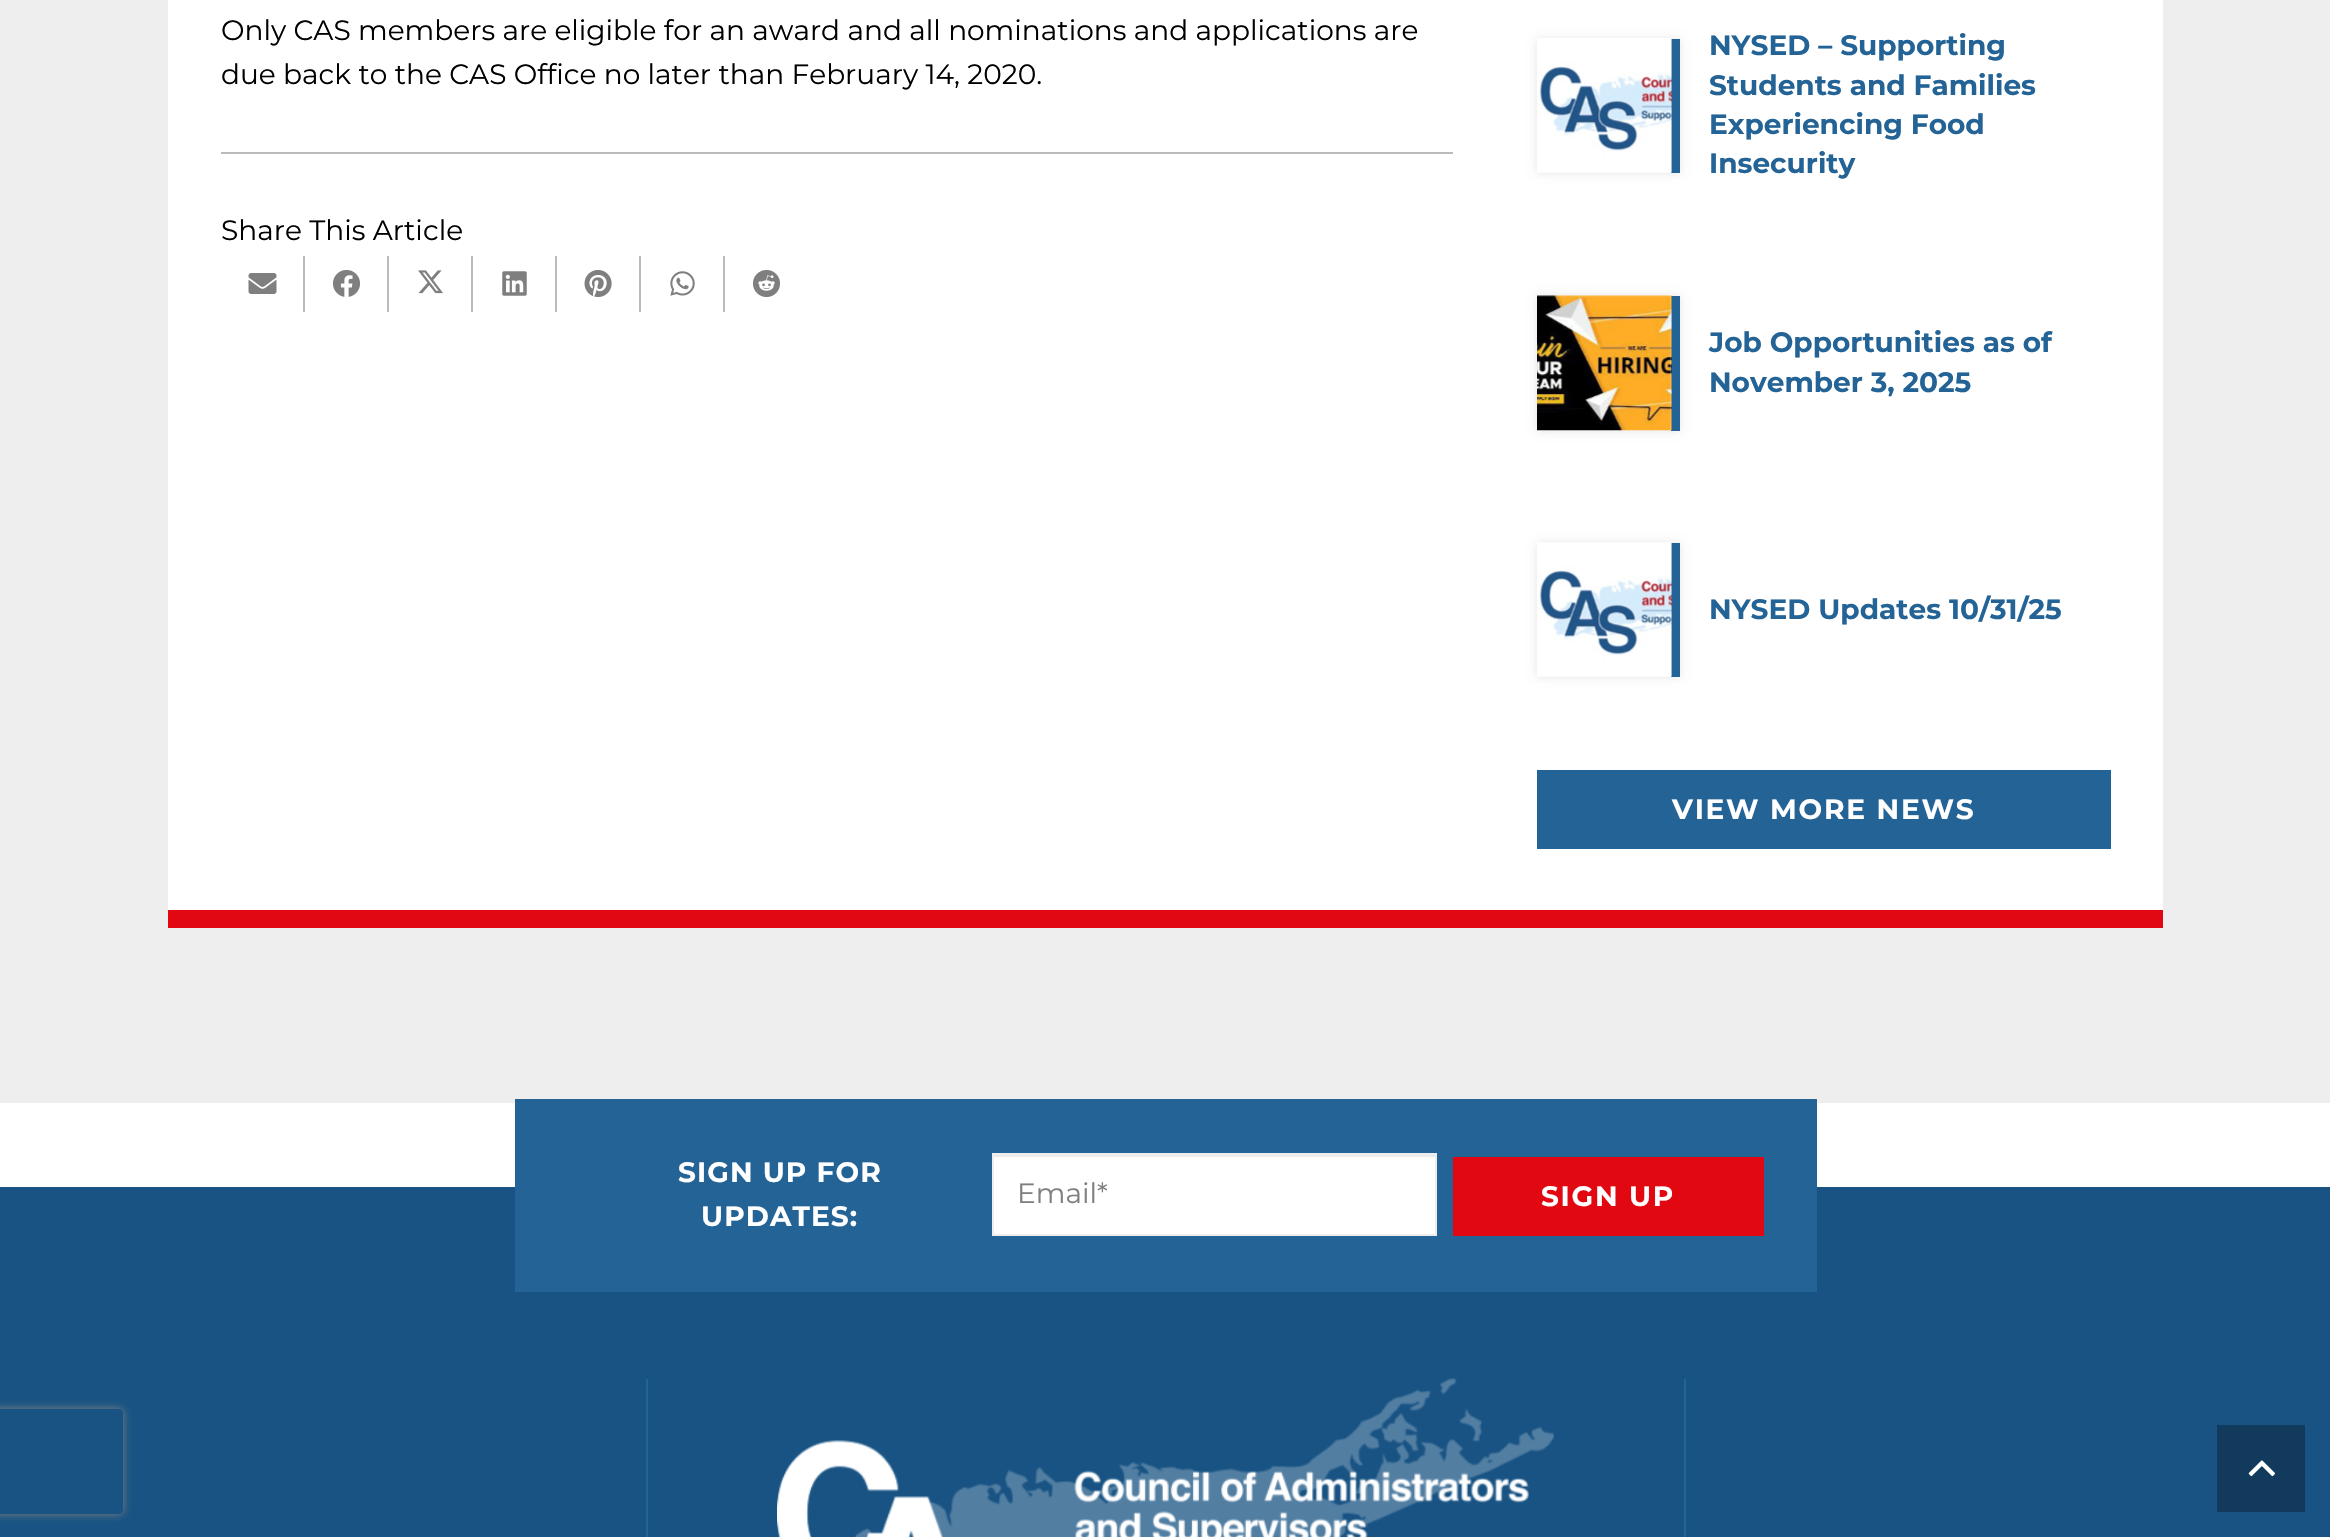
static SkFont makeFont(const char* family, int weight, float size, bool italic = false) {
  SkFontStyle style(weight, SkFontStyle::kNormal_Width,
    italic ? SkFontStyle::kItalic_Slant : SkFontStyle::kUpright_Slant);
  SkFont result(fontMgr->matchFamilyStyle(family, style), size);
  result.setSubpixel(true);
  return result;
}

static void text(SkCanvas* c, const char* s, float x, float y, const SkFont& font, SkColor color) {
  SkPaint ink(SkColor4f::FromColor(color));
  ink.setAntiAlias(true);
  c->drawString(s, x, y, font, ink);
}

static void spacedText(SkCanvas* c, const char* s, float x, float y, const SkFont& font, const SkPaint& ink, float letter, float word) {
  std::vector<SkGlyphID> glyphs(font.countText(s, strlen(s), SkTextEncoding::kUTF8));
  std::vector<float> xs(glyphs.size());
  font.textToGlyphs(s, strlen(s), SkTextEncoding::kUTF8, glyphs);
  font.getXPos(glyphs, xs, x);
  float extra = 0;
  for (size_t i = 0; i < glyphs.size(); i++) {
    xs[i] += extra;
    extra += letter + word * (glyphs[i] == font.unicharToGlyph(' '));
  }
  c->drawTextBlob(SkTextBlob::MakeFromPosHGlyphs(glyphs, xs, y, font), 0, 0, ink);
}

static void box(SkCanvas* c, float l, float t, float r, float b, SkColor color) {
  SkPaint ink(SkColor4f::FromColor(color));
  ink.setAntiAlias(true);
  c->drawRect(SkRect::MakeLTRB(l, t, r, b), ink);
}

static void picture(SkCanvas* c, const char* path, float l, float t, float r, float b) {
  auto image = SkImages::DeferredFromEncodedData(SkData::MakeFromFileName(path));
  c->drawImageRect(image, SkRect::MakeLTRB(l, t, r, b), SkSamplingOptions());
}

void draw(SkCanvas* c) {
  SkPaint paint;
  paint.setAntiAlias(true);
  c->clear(0xffffffff);
  box(c, 0, 0, 2330, 1103, 0xffeeeeee);
  box(c, 168, 910, 2163, 928, 0xffe20811);
  box(c, 168, 0, 2163, 910, 0xffffffff);
  SkFont face1 = makeFont("Montserrat", 400, 28);
  text(c, "Only CAS members are eligible for an award and all nominations and applications are", 221, 40, face1, 0xff000000);
  text(c, "due back to the CAS Office no later than February 14, 2020.", 221, 84, face1, 0xff000000);
  box(c, 221, 152, 1453, 154, 0xffbbbbbb);
  text(c, "Share This Article", 221, 240, face1, 0xff000000);
  box(c, 303, 256, 305, 312, 0xffbbbbbb);
  picture(c, "img_01.png", 248, 273, 277, 294);
  box(c, 387, 256, 389, 312, 0xffbbbbbb);
  picture(c, "img_02.png", 333, 269, 360, 297);
  box(c, 471, 256, 473, 312, 0xffbbbbbb);
  picture(c, "img_03.png", 418, 270, 443, 294);
  box(c, 555, 256, 557, 312, 0xffbbbbbb);
  picture(c, "img_04.png", 502, 271, 527, 296);
  box(c, 639, 256, 641, 312, 0xffbbbbbb);
  picture(c, "img_05.png", 584, 270, 612, 297);
  box(c, 723, 256, 725, 312, 0xffbbbbbb);
  picture(c, "img_06.png", 670, 271, 695, 296);
  picture(c, "img_07.png", 753, 269, 780, 298);
  paint.setColor(0x1a000000);
  paint.setMaskFilter(SkMaskFilter::MakeBlur(kNormal_SkBlurStyle, 4.5f));
  c->drawRect(SkRect::MakeLTRB(1537, 39, 1680, 173), paint);
  paint.setMaskFilter(nullptr);
  box(c, 1671, 39, 1680, 173, 0xff236396);
  picture(c, "img_08.png", 1537, 38, 1672, 173);
  SkFont face2 = makeFont("Montserrat", 700, 28);
  text(c, "NYSED – Supporting", 1709, 55, face2, 0xff236396);
  text(c, "Students and Families", 1709, 95, face2, 0xff236396);
  text(c, "Experiencing Food", 1709, 134, face2, 0xff236396);
  text(c, "Insecurity", 1709, 173, face2, 0xff236396);
  paint.setMaskFilter(SkMaskFilter::MakeBlur(kNormal_SkBlurStyle, 4.5f));
  c->drawRect(SkRect::MakeLTRB(1537, 296, 1680, 431), paint);
  paint.setMaskFilter(nullptr);
  box(c, 1671, 296, 1680, 431, 0xff236396);
  picture(c, "img_09.png", 1537, 295, 1672, 431);
  text(c, "Job Opportunities as of", 1709, 352, face2, 0xff236396);
  text(c, "November 3, 2025", 1709, 392, face2, 0xff236396);
  paint.setMaskFilter(SkMaskFilter::MakeBlur(kNormal_SkBlurStyle, 4.5f));
  c->drawRect(SkRect::MakeLTRB(1537, 543, 1680, 677), paint);
  paint.setMaskFilter(nullptr);
  box(c, 1671, 543, 1680, 677, 0xff236396);
  picture(c, "img_10.png", 1537, 542, 1672, 677);
  text(c, "NYSED Updates 10/31/25", 1709, 619, face2, 0xff236396);
  box(c, 1537, 770, 2111, 849, 0xff236396);
  paint.setColor(0xffffffff);
  spacedText(c, "VIEW MORE NEWS", 1672, 819, face2, paint, 1.75f, 0);
  box(c, 0, 1187, 2330, 1537, 0xff185383);
  box(c, 515, 1099, 1817, 1292, 0xff236396);
  spacedText(c, "SIGN UP FOR", 678, 1182, face2, paint, 1.1f, 0);
  spacedText(c, "UPDATES:", 701, 1226, face2, paint, 1.1f, 0);
  box(c, 994, 1157, 1435, 1234, 0xffffffff);
  box(c, 994, 1155, 1435, 1157, 0xffebebeb);
  paint.setStyle(SkPaint::kStroke_Style);
  paint.setStrokeWidth(2);
  paint.setColor(0xffeeeeee);
  c->drawRect(SkRect::MakeLTRB(993, 1154, 1436, 1235), paint);
  text(c, "Email*", 1017, 1203, face1, 0xff808080);
  box(c, 1453, 1157, 1764, 1236, 0xffe20811);
  paint.setStyle(SkPaint::kFill_Style);
  paint.setColor(0xffffffff);
  spacedText(c, "SIGN UP", 1541, 1206, face2, paint, 1.75f, 0);
  c->save();
  c->clipPath(SkPathBuilder(SkPathFillType::kEvenOdd).moveTo(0, 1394).lineTo(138, 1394).lineTo(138, 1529).lineTo(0, 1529).close().moveTo(-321, 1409).lineTo(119, 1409).cubicTo(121, 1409, 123, 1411, 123, 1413).lineTo(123, 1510).cubicTo(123, 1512, 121, 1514, 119, 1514).lineTo(-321, 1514).cubicTo(-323, 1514, -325, 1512, -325, 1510).lineTo(-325, 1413).cubicTo(-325, 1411, -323, 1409, -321, 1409).close().detach(), true);
  paint.setColor(0xff808080);
  paint.setMaskFilter(SkMaskFilter::MakeBlur(kNormal_SkBlurStyle, 4.5f));
  c->drawRoundRect(SkRect::MakeLTRB(-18, 1409, 123, 1514), 4, 4, paint);
  paint.setMaskFilter(nullptr);
  c->restore();
  box(c, 1684, 1379, 1686, 1537, 0xff236396);
  box(c, 646, 1379, 648, 1537, 0xff236396);
  picture(c, "img_11.png", 777, 1378, 1554, 1537);
  box(c, 2217, 1425, 2305, 1512, 0xff113a5c);
  picture(c, "img_12.png", 2248, 1460, 2275, 1477);
}
